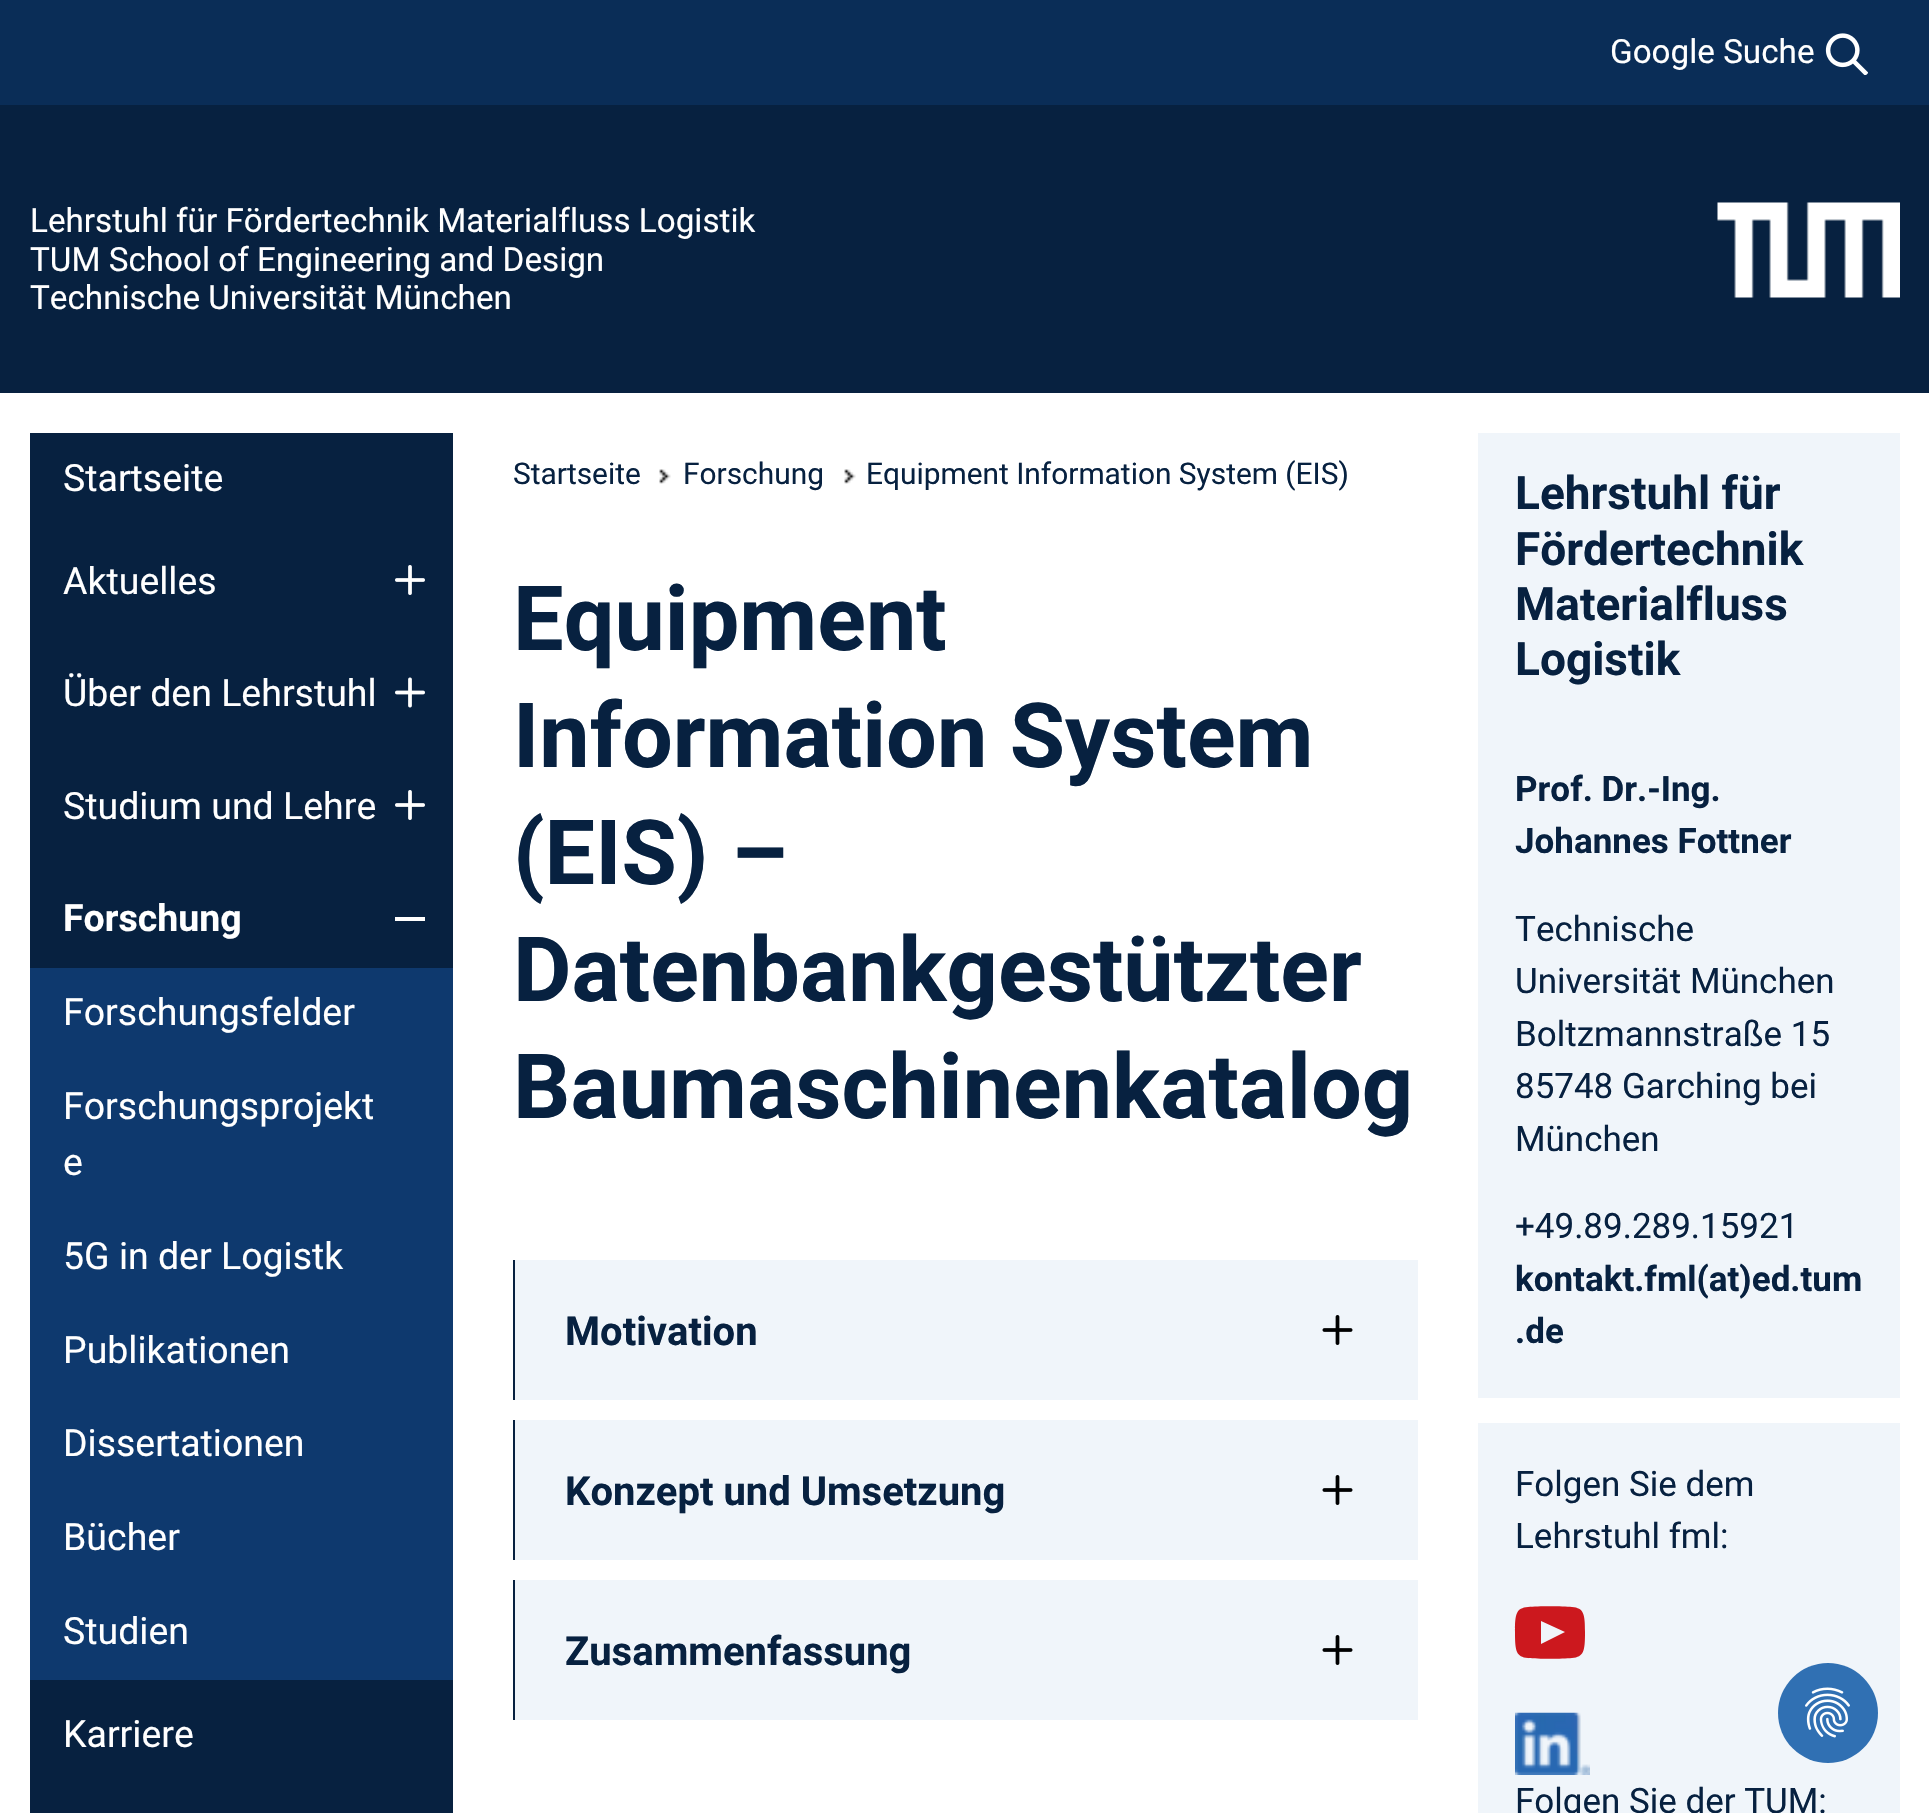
static SkFont makeFont(const char* family, int weight, float size, bool italic = false) {
  SkFontStyle style(weight, SkFontStyle::kNormal_Width,
    italic ? SkFontStyle::kItalic_Slant : SkFontStyle::kUpright_Slant);
  SkFont result(fontMgr->matchFamilyStyle(family, style), size);
  result.setSubpixel(true);
  return result;
}

static void text(SkCanvas* c, const char* s, float x, float y, const SkFont& font, SkColor color) {
  SkPaint ink(SkColor4f::FromColor(color));
  ink.setAntiAlias(true);
  c->drawString(s, x, y, font, ink);
}

static void box(SkCanvas* c, float l, float t, float r, float b, SkColor color) {
  SkPaint ink(SkColor4f::FromColor(color));
  ink.setAntiAlias(true);
  c->drawRect(SkRect::MakeLTRB(l, t, r, b), ink);
}

static void picture(SkCanvas* c, const char* path, float l, float t, float r, float b) {
  auto image = SkImages::DeferredFromEncodedData(SkData::MakeFromFileName(path));
  c->drawImageRect(image, SkRect::MakeLTRB(l, t, r, b), SkSamplingOptions());
}

void draw(SkCanvas* c) {
  SkPaint paint;
  paint.setAntiAlias(true);
  c->clear(0xffffffff);
  box(c, 0, 0, 1929, 105, 0xff0a2d57);
  SkFont face1 = makeFont("Roboto", 400, 33.25f);
  text(c, "Google Suche", 1610, 63, face1, 0xffffffff);
  picture(c, "img_01.png", 1825, 33, 1868, 75);
  box(c, 0, 105, 1929, 393, 0xff072140);
  text(c, "Lehrstuhl für Fördertechnik Materialfluss Logistik", 30, 232, face1, 0xffffffff);
  text(c, "TUM School of Engineering and Design", 30, 271, face1, 0xffffffff);
  text(c, "Technische Universität München", 30, 309, face1, 0xffffffff);
  picture(c, "img_02.png", 1717, 202, 1900, 298);
  box(c, 30, 433, 453, 1813, 0xff072140);
  SkFont face2 = makeFont("Roboto", 400, 37.5f);
  text(c, "Startseite", 63, 491, face2, 0xffffffff);
  text(c, "Aktuelles", 63, 594, face2, 0xffffffff);
  picture(c, "img_03.png", 395, 565, 425, 595);
  text(c, "Über den Lehrstuhl", 63, 706, face2, 0xffffffff);
  picture(c, "img_04.png", 395, 677, 425, 708);
  text(c, "Studium und Lehre", 63, 819, face2, 0xffffffff);
  picture(c, "img_03.png", 395, 790, 425, 820);
  SkFont face3 = makeFont("Roboto", 700, 37.5f);
  text(c, "Forschung", 63, 931, face3, 0xffffffff);
  box(c, 395, 917, 425, 921, 0xffffffff);
  box(c, 30, 968, 453, 1680, 0xff0e396e);
  text(c, "Forschungsfelder", 63, 1025, face2, 0xffffffff);
  text(c, "Forschungsprojekt", 63, 1119, face2, 0xffffffff);
  text(c, "e", 63, 1175, face2, 0xffffffff);
  text(c, "5G in der Logistk", 63, 1269, face2, 0xffffffff);
  text(c, "Publikationen", 63, 1363, face2, 0xffffffff);
  text(c, "Dissertationen", 63, 1456, face2, 0xffffffff);
  text(c, "Bücher", 63, 1550, face2, 0xffffffff);
  text(c, "Studien", 63, 1644, face2, 0xffffffff);
  text(c, "Karriere", 63, 1747, face2, 0xffffffff);
  SkFont face4 = makeFont("Roboto", 400, 29.9f);
  text(c, "Startseite", 513, 484, face4, 0xff072140);
  picture(c, "img_05.png", 659, 469, 671, 484);
  text(c, "Forschung", 683, 484, face4, 0xff072140);
  picture(c, "img_06.png", 844, 469, 856, 484);
  text(c, "Equipment Information System (EIS)", 866, 484, face4, 0xff072140);
  SkFont face5 = makeFont("Roboto", 700, 90);
  text(c, "Equipment", 513, 650, face5, 0xff072140);
  text(c, "Information System", 513, 767, face5, 0xff072140);
  text(c, "(EIS) –", 513, 884, face5, 0xff072140);
  text(c, "Datenbankgestützter", 513, 1001, face5, 0xff072140);
  text(c, "Baumaschinenkatalog", 513, 1118, face5, 0xff072140);
  box(c, 513, 1260, 515, 1400, 0xff072140);
  box(c, 515, 1260, 1418, 1400, 0xfff0f5fa);
  SkFont face6 = makeFont("Roboto", 700, 40);
  text(c, "Motivation", 565, 1345, face6, 0xff072140);
  picture(c, "img_07.png", 1322, 1315, 1353, 1345);
  box(c, 513, 1420, 515, 1560, 0xff072140);
  box(c, 515, 1420, 1418, 1560, 0xfff0f5fa);
  text(c, "Konzept und Umsetzung", 565, 1505, face6, 0xff072140);
  picture(c, "img_07.png", 1322, 1475, 1353, 1505);
  box(c, 513, 1580, 515, 1720, 0xff072140);
  box(c, 515, 1580, 1418, 1720, 0xfff0f5fa);
  text(c, "Zusammenfassung", 565, 1665, face6, 0xff072140);
  picture(c, "img_07.png", 1322, 1635, 1353, 1665);
  box(c, 1478, 433, 1900, 1398, 0xfff0f5fa);
  SkFont face7 = makeFont("Roboto", 700, 46);
  text(c, "Lehrstuhl für", 1515, 509, face7, 0xff072140);
  text(c, "Fördertechnik", 1515, 565, face7, 0xff072140);
  text(c, "Materialfluss", 1515, 620, face7, 0xff072140);
  text(c, "Logistik", 1515, 675, face7, 0xff072140);
  SkFont face8 = makeFont("Roboto", 700, 35);
  text(c, "Prof. Dr.-Ing.", 1515, 801, face8, 0xff072140);
  text(c, "Johannes Fottner", 1515, 853, face8, 0xff072140);
  SkFont face9 = makeFont("Roboto", 400, 35);
  text(c, "Technische", 1515, 941, face9, 0xff072140);
  text(c, "Universität München", 1515, 993, face9, 0xff072140);
  text(c, "Boltzmannstraße 15", 1515, 1046, face9, 0xff072140);
  text(c, "85748 Garching bei", 1515, 1098, face9, 0xff072140);
  text(c, "München", 1515, 1151, face9, 0xff072140);
  text(c, "+49.89.289.15921", 1515, 1238, face9, 0xff072140);
  text(c, "kontakt.fml(at)ed.tum", 1515, 1291, face8, 0xff072140);
  text(c, ".de", 1515, 1343, face8, 0xff072140);
  box(c, 1478, 1423, 1900, 1813, 0xfff0f5fa);
  text(c, "Folgen Sie dem", 1515, 1496, face9, 0xff072140);
  text(c, "Lehrstuhl fml:", 1515, 1548, face9, 0xff072140);
  paint.setColor(0xffcc181e);
  c->drawPath(SkPathBuilder().moveTo(1572, 1607).cubicTo(1562, 1606, 1538, 1606, 1528, 1607).cubicTo(1516, 1608, 1515, 1614, 1515, 1632).cubicTo(1515, 1651, 1516, 1657, 1528, 1658).cubicTo(1538, 1659, 1562, 1659, 1572, 1658).cubicTo(1584, 1657, 1585, 1651, 1585, 1632).cubicTo(1585, 1614, 1584, 1608, 1572, 1607).close().moveTo(1541, 1644).lineTo(1541, 1621).lineTo(1565, 1632).close().detach(), paint);
  picture(c, "img_08.png", 1515, 1712, 1590, 1775);
  text(c, "Folgen Sie der TUM:", 1515, 1813, face9, 0xff072140);
  paint.setColor(0xff3070b3);
  c->drawCircle(1828, 1713, 50, paint);
  picture(c, "img_09.png", 1805, 1687, 1850, 1738);
}
